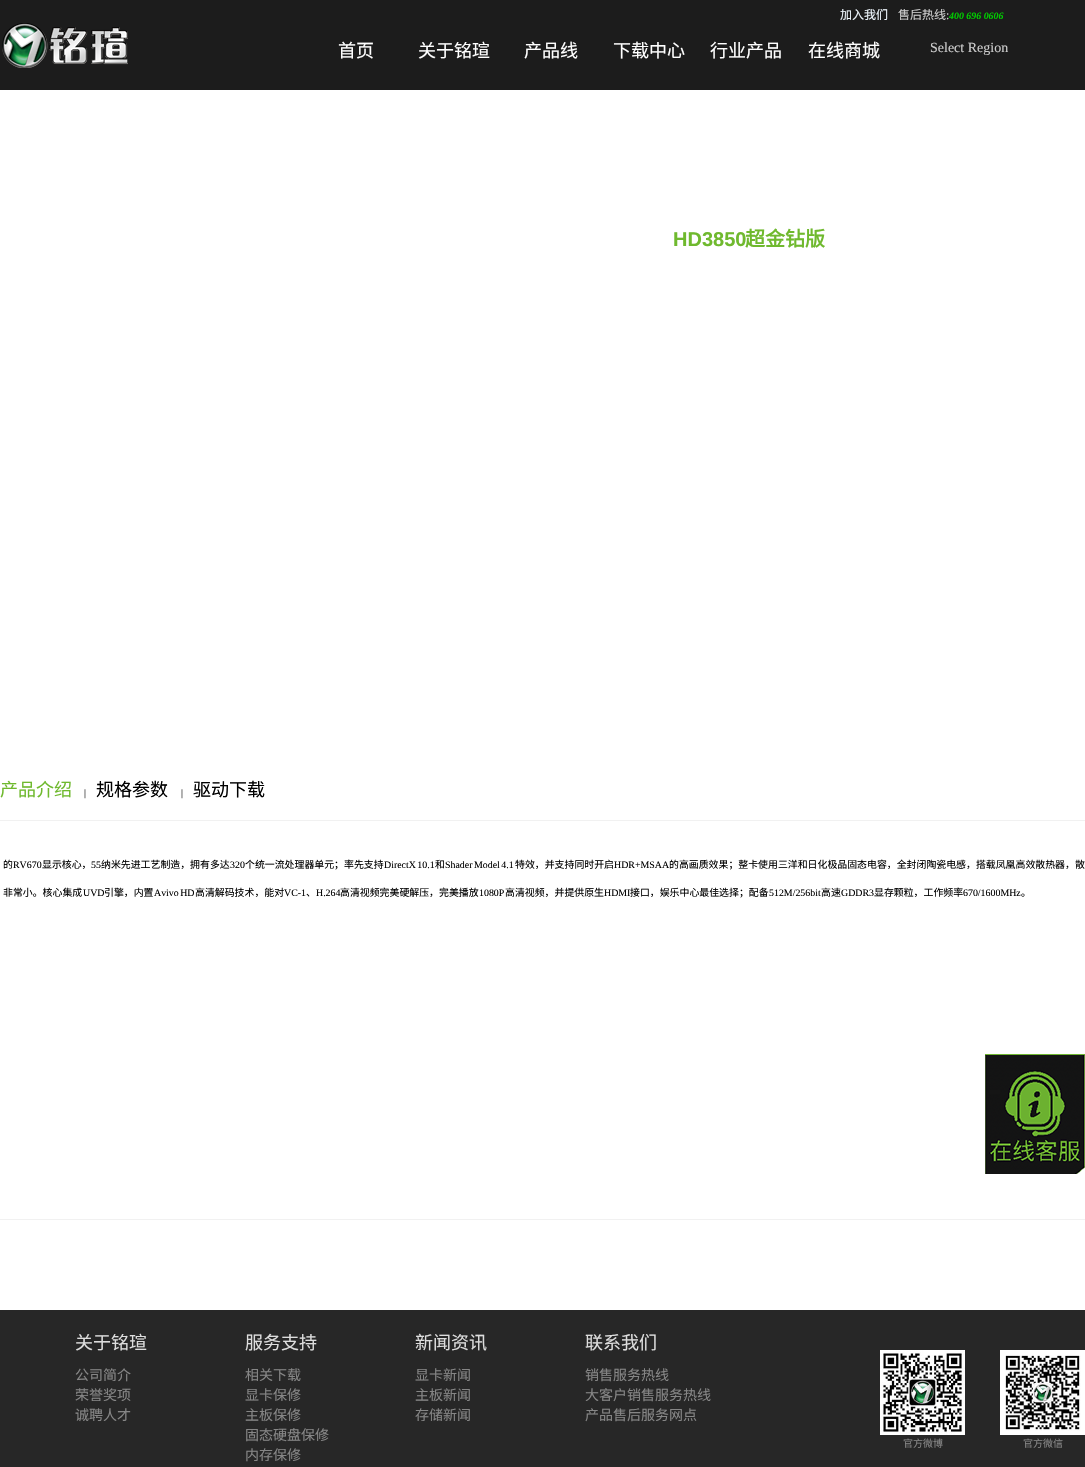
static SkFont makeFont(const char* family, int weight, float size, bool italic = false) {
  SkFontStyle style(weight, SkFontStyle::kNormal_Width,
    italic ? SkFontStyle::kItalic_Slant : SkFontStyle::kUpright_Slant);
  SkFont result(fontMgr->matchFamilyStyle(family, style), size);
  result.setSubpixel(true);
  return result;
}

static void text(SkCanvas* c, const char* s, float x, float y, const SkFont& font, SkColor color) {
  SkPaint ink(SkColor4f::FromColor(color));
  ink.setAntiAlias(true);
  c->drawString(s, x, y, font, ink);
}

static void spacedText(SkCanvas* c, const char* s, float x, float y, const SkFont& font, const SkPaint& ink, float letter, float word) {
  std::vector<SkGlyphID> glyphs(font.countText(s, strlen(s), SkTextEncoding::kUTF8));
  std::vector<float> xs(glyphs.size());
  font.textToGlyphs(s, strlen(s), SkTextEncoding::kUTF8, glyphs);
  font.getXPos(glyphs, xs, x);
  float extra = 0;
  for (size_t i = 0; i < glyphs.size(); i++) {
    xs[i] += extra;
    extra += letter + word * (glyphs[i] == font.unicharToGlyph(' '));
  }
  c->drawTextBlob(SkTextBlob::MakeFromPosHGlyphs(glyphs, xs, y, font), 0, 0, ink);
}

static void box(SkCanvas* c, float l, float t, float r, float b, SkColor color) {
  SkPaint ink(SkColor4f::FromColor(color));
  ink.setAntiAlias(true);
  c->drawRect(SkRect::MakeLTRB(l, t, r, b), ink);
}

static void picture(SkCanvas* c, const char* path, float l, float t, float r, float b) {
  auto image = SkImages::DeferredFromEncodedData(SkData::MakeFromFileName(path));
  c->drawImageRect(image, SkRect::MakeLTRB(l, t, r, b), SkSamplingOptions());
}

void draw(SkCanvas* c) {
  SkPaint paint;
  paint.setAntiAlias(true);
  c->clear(0xffffffff);
  box(c, 0, 0, 1085, 90, 0xff1c1c1c);
  picture(c, "img_01.png", 2, 23, 128, 68);
  SkFont face1 = makeFont("Noto Sans CJK SC", 400, 18);
  text(c, "首页", 338, 57, face1, 0xffffffff);
  text(c, "关于铭瑄", 418, 57, face1, 0xffffffff);
  text(c, "产品线", 524, 57, face1, 0xffffffff);
  text(c, "下载中心", 613, 57, face1, 0xffffffff);
  text(c, "行业产品", 710, 57, face1, 0xffffffff);
  text(c, "在线商城", 808, 57, face1, 0xffffffff);
  SkFont face2 = makeFont("Noto Sans CJK SC", 400, 12);
  text(c, "加入我们", 840, 19, face2, 0xfff0f8ff);
  text(c, "售后热线", 898, 19, face2, 0xffcccccc);
  SkFont face3 = makeFont("Liberation Serif", 400, 12);
  text(c, ":", 946, 19, face3, 0xffcccccc);
  SkFont face4 = makeFont("Liberation Serif", 700, 9.9f, true);
  text(c, "400 696 0606", 949, 19, face4, 0xff00cc00);
  SkFont face5 = makeFont("Liberation Serif", 400, 14);
  text(c, "Select Region", 930, 52, face5, 0xffcccccc);
  SkFont face6 = makeFont("Liberation Sans", 700, 20);
  text(c, "HD3850", 673, 246, face6, 0xff6fb92e);
  SkFont face7 = makeFont("Noto Sans CJK SC", 700, 20);
  text(c, "超金钻版", 745, 246, face7, 0xff6fb92e);
  text(c, "产品介绍", 0, 796, face1, 0xff6fb92e);
  SkFont face8 = makeFont("Liberation Serif", 400, 9.9f);
  text(c, "|", 84, 796, face8, 0xff000000);
  text(c, "规格参数", 96, 796, face1, 0xff000000);
  text(c, "|", 181, 796, face8, 0xff000000);
  text(c, "驱动下载", 193, 796, face1, 0xff000000);
  paint.setStyle(SkPaint::kStroke_Style);
  paint.setStrokeWidth(1);
  paint.setColor(0xfff1f1f1);
  c->drawRect(SkRect::MakeLTRB(-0.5f, 820.5f, 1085.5f, 1219.5f), paint);
  SkFont face9 = makeFont("Noto Sans CJK SC", 400, 9.9f);
  text(c, "的", 3, 868, face9, 0xff000000);
  text(c, "RV670", 13, 868, face8, 0xff000000);
  text(c, "显示核心，", 42, 868, face9, 0xff000000);
  text(c, "55", 91, 868, face8, 0xff000000);
  text(c, "纳米先进工艺制造，拥有多达", 101, 868, face9, 0xff000000);
  text(c, "320", 230, 868, face8, 0xff000000);
  text(c, "个统一流处理器单元；率先支持", 245, 868, face9, 0xff000000);
  paint.setStyle(SkPaint::kFill_Style);
  paint.setColor(0xff000000);
  spacedText(c, "DirectX 10.1", 384, 868, face8, paint, 0, -1);
  text(c, "和", 435, 868, face9, 0xff000000);
  spacedText(c, "Shader Model 4.1", 445, 868, face8, paint, 0, -1);
  text(c, "特效，并支持同时开启", 515, 868, face9, 0xff000000);
  text(c, "HDR+MSAA", 614, 868, face8, 0xff000000);
  text(c, "的高画质效果；整卡使用三洋和日化极品固态电容，全封闭陶瓷电感，搭载凤凰高效散热器，散", 669, 868, face9, 0xff000000);
  text(c, "非常小。核心集成", 3, 896, face9, 0xff000000);
  text(c, "UVD", 83, 896, face8, 0xff000000);
  text(c, "引擎，内置", 104, 896, face9, 0xff000000);
  spacedText(c, "Avivo HD", 154, 896, face8, paint, 0, -1);
  text(c, "高清解码技术，能对", 195, 896, face9, 0xff000000);
  text(c, "VC-1", 284, 896, face8, 0xff000000);
  text(c, "、", 306, 896, face9, 0xff000000);
  text(c, "H.264", 316, 896, face8, 0xff000000);
  text(c, "高清视频完美硬解压，完美播放", 340, 896, face9, 0xff000000);
  text(c, "1080P", 479, 896, face8, 0xff000000);
  text(c, "高清视频，并提供原生", 505, 896, face9, 0xff000000);
  text(c, "HDMI", 604, 896, face8, 0xff000000);
  text(c, "接口，娱乐中心最佳选择；配备", 630, 896, face9, 0xff000000);
  text(c, "512M/256bit", 769, 896, face8, 0xff000000);
  text(c, "高速", 821, 896, face9, 0xff000000);
  text(c, "GDDR3", 841, 896, face8, 0xff000000);
  text(c, "显存颗粒，工作频率", 874, 896, face9, 0xff000000);
  text(c, "670/1600MHz", 963, 896, face8, 0xff000000);
  text(c, "。", 1021, 896, face9, 0xff000000);
  picture(c, "img_02.png", 985, 1054, 1085, 1174);
  box(c, 0, 1310, 1085, 1467, 0xff272727);
  text(c, "关于铭瑄", 75, 1349, face1, 0xffdddddd);
  SkFont face10 = makeFont("Noto Sans CJK SC", 400, 14);
  text(c, "公司简介", 75, 1380, face10, 0xff868686);
  text(c, "荣誉奖项", 75, 1400, face10, 0xff868686);
  text(c, "诚聘人才", 75, 1420, face10, 0xff868686);
  text(c, "服务支持", 245, 1349, face1, 0xffdddddd);
  text(c, "相关下载", 245, 1380, face10, 0xff868686);
  text(c, "显卡保修", 245, 1400, face10, 0xff868686);
  text(c, "主板保修", 245, 1420, face10, 0xff868686);
  text(c, "固态硬盘保修", 245, 1440, face10, 0xff868686);
  text(c, "内存保修", 245, 1460, face10, 0xff868686);
  text(c, "新闻资讯", 415, 1349, face1, 0xffdddddd);
  text(c, "显卡新闻", 415, 1380, face10, 0xff868686);
  text(c, "主板新闻", 415, 1400, face10, 0xff868686);
  text(c, "存储新闻", 415, 1420, face10, 0xff868686);
  text(c, "联系我们", 585, 1349, face1, 0xffdddddd);
  text(c, "销售服务热线", 585, 1380, face10, 0xff868686);
  text(c, "大客户销售服务热线", 585, 1400, face10, 0xff868686);
  text(c, "产品售后服务网点", 585, 1420, face10, 0xff868686);
  picture(c, "img_03.png", 880, 1350, 965, 1435);
  SkFont face11 = makeFont("Noto Sans CJK SC", 400, 10);
  text(c, "官方微博", 903, 1447, face11, 0xff868686);
  picture(c, "img_04.png", 1000, 1350, 1085, 1435);
  text(c, "官方微信", 1023, 1447, face11, 0xff868686);
}
